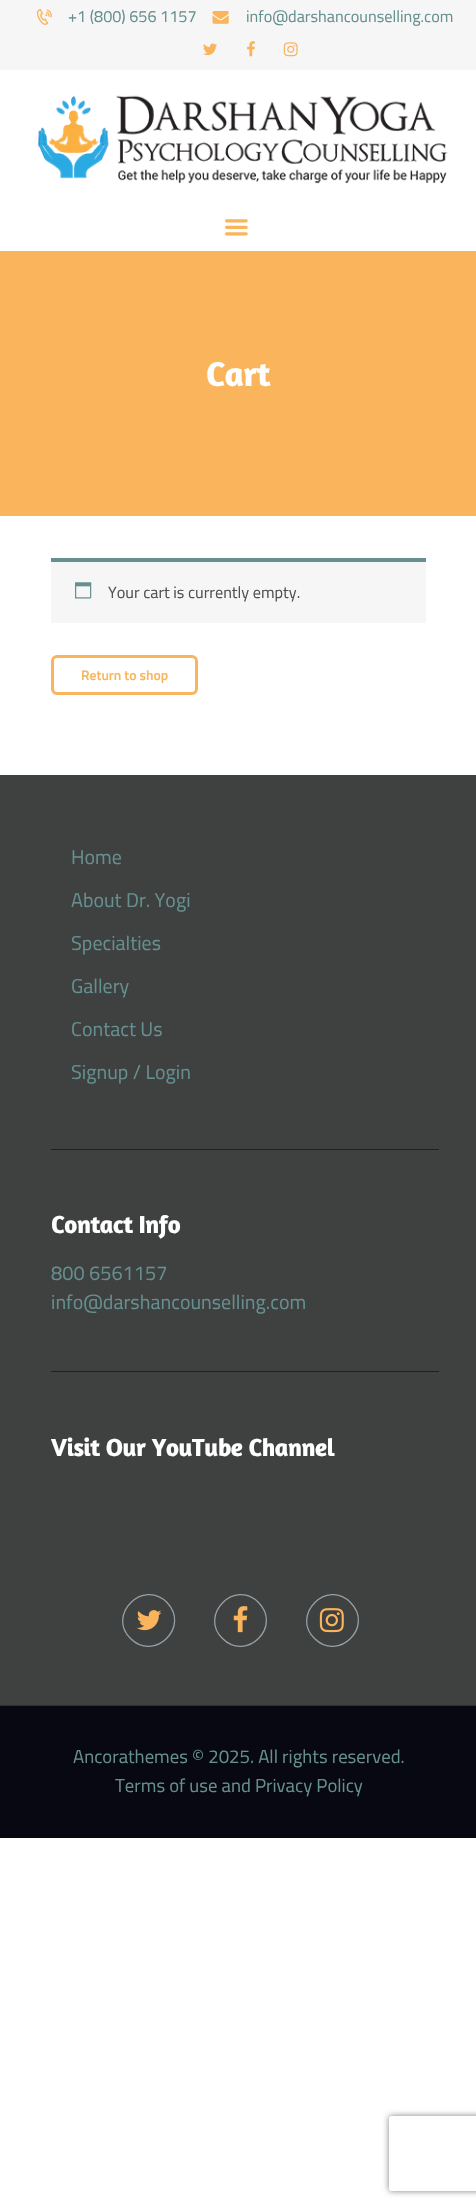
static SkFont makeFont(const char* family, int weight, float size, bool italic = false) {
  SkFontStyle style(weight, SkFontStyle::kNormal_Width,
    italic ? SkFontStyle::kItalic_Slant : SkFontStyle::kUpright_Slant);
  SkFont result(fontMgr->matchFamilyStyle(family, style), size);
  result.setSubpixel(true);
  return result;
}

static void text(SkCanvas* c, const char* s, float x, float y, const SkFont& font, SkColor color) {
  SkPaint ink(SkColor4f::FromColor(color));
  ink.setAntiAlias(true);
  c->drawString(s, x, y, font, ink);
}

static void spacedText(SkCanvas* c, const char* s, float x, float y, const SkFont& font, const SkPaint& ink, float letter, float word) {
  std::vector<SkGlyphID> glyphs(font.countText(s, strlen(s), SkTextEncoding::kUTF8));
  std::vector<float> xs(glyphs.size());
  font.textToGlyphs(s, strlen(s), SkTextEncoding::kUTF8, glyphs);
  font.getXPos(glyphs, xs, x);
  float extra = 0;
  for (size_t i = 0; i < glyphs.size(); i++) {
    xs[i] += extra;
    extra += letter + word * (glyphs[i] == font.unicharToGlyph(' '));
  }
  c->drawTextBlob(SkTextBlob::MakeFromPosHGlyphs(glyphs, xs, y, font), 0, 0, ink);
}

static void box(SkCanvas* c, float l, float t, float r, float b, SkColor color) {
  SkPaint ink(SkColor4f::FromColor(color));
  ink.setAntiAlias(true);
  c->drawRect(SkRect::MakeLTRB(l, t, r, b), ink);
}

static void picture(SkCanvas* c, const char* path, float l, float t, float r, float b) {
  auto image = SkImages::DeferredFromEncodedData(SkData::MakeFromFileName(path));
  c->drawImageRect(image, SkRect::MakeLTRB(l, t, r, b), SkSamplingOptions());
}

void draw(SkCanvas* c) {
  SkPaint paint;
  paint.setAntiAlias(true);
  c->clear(0xffffffff);
  box(c, 0, 0, 476, 70, 0xfff6f6f6);
  picture(c, "img_01.png", 37, 8, 52, 25);
  SkFont face1 = makeFont("Titillium Web", 400, 16.25f);
  text(c, "+1 (800) 656 1157", 68, 22, face1, 0xff65908f);
  picture(c, "img_02.png", 212, 11, 229, 24);
  text(c, "info@darshancounselling.com", 246, 22, face1, 0xff65908f);
  picture(c, "img_03.png", 203, 43, 217, 56);
  picture(c, "img_04.png", 247, 41, 255, 57);
  picture(c, "img_05.png", 283, 42, 298, 57);
  picture(c, "img_06.png", 38, 95, 448, 184);
  picture(c, "img_07.png", 225, 219, 248, 236);
  box(c, 0, 251, 476, 516, 0xfff9b45c);
  SkFont face2 = makeFont("Amaranth", 700, 35);
  paint.setColor(0xffffffff);
  spacedText(c, "Cart", 206, 386, face2, paint, -0.5f, 0);
  box(c, 51, 562, 426, 623, 0xfff6f6f6);
  box(c, 51, 558, 426, 562, 0xff65908f);
  picture(c, "img_08.png", 75, 582, 92, 599);
  text(c, "Your cart is currently empty.", 108, 598, face1, 0xff515151);
  paint.setStyle(SkPaint::kStroke_Style);
  paint.setStrokeWidth(3);
  paint.setColor(0xfff9b45c);
  c->drawRoundRect(SkRect::MakeLTRB(52.5f, 656.5f, 196.5f, 693.5f), 4.5f, 4.5f, paint);
  SkFont face3 = makeFont("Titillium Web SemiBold", 600, 13.75f);
  text(c, "Return to shop", 81, 680, face3, 0xfff9b45c);
  box(c, 0, 775, 476, 1705, 0xff3f4040);
  SkFont face4 = makeFont("Titillium Web", 400, 20);
  text(c, "Home", 71, 864, face4, 0xff65908f);
  text(c, "About Dr. Yogi", 71, 907, face4, 0xff65908f);
  text(c, "Specialties", 71, 950, face4, 0xff65908f);
  text(c, "Gallery", 71, 993, face4, 0xff65908f);
  text(c, "Contact Us", 71, 1036, face4, 0xff65908f);
  text(c, "Signup / Login", 71, 1079, face4, 0xff65908f);
  box(c, 51, 1149, 439, 1150, 0xff181e3d);
  SkFont face5 = makeFont("Amaranth", 700, 25);
  paint.setStyle(SkPaint::kFill_Style);
  paint.setColor(0xffffffff);
  spacedText(c, "Contact Info", 51, 1233, face5, paint, -0.4f, 0);
  text(c, "800 6561157", 51, 1280, face4, 0xff65908f);
  text(c, "info@darshancounselling.com", 51, 1309, face4, 0xff65908f);
  box(c, 51, 1371, 439, 1372, 0xff181e3d);
  spacedText(c, "Visit Our YouTube Channel", 51, 1456, face5, paint, -0.4f, 0);
  paint.setStyle(SkPaint::kStroke_Style);
  paint.setStrokeWidth(1.3f);
  paint.setColor(0xff969fa6);
  c->drawPath(SkPathBuilder().moveTo(167, 1602.5f).cubicTo(190.5f, 1626.5f, 154.5f, 1662.5f, 130.5f, 1638.5f).cubicTo(106.5f, 1615, 143, 1578.5f, 167, 1602.5f).close().detach(), paint);
  picture(c, "img_09.png", 137, 1610, 162, 1631);
  c->drawPath(SkPathBuilder().moveTo(258.5f, 1602.5f).cubicTo(282.5f, 1626.5f, 246.5f, 1662.5f, 222.5f, 1638.5f).cubicTo(198.5f, 1615, 235, 1578.5f, 258.5f, 1602.5f).close().detach(), paint);
  picture(c, "img_10.png", 233, 1606, 248, 1633);
  c->drawPath(SkPathBuilder().moveTo(350.5f, 1602.5f).cubicTo(374.5f, 1626.5f, 338.5f, 1662.5f, 314.5f, 1638.5f).cubicTo(290.5f, 1615, 327, 1578.5f, 350.5f, 1602.5f).close().detach(), paint);
  picture(c, "img_11.png", 319, 1608, 344, 1633);
  box(c, 0, 1706, 476, 1838, 0xff070811);
  box(c, 0, 1705, 476, 1706, 0xff2b2e41);
  SkFont face6 = makeFont("Titillium Web", 400, 18.7f);
  text(c, "Ancorathemes © 2025. All rights reserved.", 73, 1763, face6, 0xff65908f);
  text(c, "Terms of use and Privacy Policy", 115, 1792, face6, 0xff65908f);
  c->save();
  c->clipPath(SkPathBuilder(SkPathFillType::kEvenOdd).moveTo(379, 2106).lineTo(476, 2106).lineTo(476, 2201).lineTo(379, 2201).close().moveTo(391.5f, 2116).lineTo(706.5f, 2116).cubicTo(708, 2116, 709, 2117, 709, 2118.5f).lineTo(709, 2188.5f).cubicTo(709, 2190, 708, 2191, 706.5f, 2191).lineTo(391.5f, 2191).cubicTo(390, 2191, 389, 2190, 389, 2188.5f).lineTo(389, 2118.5f).cubicTo(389, 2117, 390, 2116, 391.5f, 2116).close().detach(), true);
  paint.setStyle(SkPaint::kFill_Style);
  paint.setColor(0xff808080);
  paint.setMaskFilter(SkMaskFilter::MakeBlur(kNormal_SkBlurStyle, 3));
  c->drawRoundRect(SkRect::MakeLTRB(389, 2116, 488, 2191), 2.5f, 2.5f, paint);
  paint.setMaskFilter(nullptr);
  c->restore();
}
